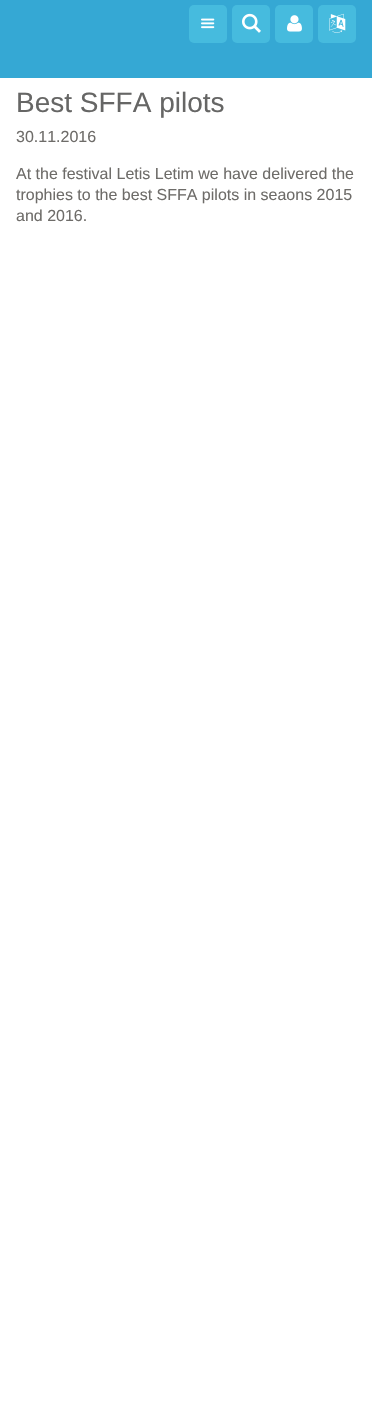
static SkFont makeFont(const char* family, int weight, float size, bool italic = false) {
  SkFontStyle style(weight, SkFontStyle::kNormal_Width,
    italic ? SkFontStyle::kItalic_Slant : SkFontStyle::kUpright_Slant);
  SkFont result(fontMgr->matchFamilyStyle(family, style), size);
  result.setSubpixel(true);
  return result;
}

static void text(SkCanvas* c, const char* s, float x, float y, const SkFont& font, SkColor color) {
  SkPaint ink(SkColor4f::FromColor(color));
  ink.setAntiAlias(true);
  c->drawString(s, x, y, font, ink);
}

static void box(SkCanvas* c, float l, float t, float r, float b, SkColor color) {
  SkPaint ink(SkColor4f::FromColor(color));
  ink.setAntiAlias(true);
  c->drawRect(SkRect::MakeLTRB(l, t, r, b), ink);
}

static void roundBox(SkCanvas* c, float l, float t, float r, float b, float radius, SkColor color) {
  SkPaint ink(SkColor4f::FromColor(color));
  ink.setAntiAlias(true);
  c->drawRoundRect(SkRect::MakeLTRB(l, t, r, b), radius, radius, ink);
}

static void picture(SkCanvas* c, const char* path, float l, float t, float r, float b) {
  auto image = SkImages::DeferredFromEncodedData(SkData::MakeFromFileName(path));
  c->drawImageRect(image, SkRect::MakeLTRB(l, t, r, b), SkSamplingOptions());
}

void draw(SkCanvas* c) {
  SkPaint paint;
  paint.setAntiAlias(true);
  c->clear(0xffffffff);
  box(c, 0, 0, 372, 78, 0xff35a8d4);
  roundBox(c, 189, 5, 227, 43, 5, 0xff46bbde);
  picture(c, "img_01.png", 201, 18, 215, 29);
  roundBox(c, 232, 5, 270, 43, 5, 0xff46bbde);
  picture(c, "img_02.png", 242, 13, 261, 33);
  roundBox(c, 275, 5, 313, 43, 5, 0xff46bbde);
  picture(c, "img_03.png", 287, 15, 302, 32);
  roundBox(c, 318, 5, 356, 43, 5, 0xff46bbde);
  picture(c, "img_04.png", 329, 13, 346, 33);
  SkFont face1 = makeFont("Liberation Sans", 400, 28);
  text(c, "Best SFFA pilots", 16, 112, face1, 0xff666665);
  SkFont face2 = makeFont("Liberation Sans", 400, 16);
  text(c, "30.11.2016", 16, 142, face2, 0xff6e6c69);
  text(c, "At the festival Letis Letim we have delivered the", 16, 179, face2, 0xff6e6c69);
  text(c, "trophies to the best SFFA pilots in seaons 2015", 16, 200, face2, 0xff6e6c69);
  text(c, "and 2016.", 16, 221, face2, 0xff6e6c69);
}
